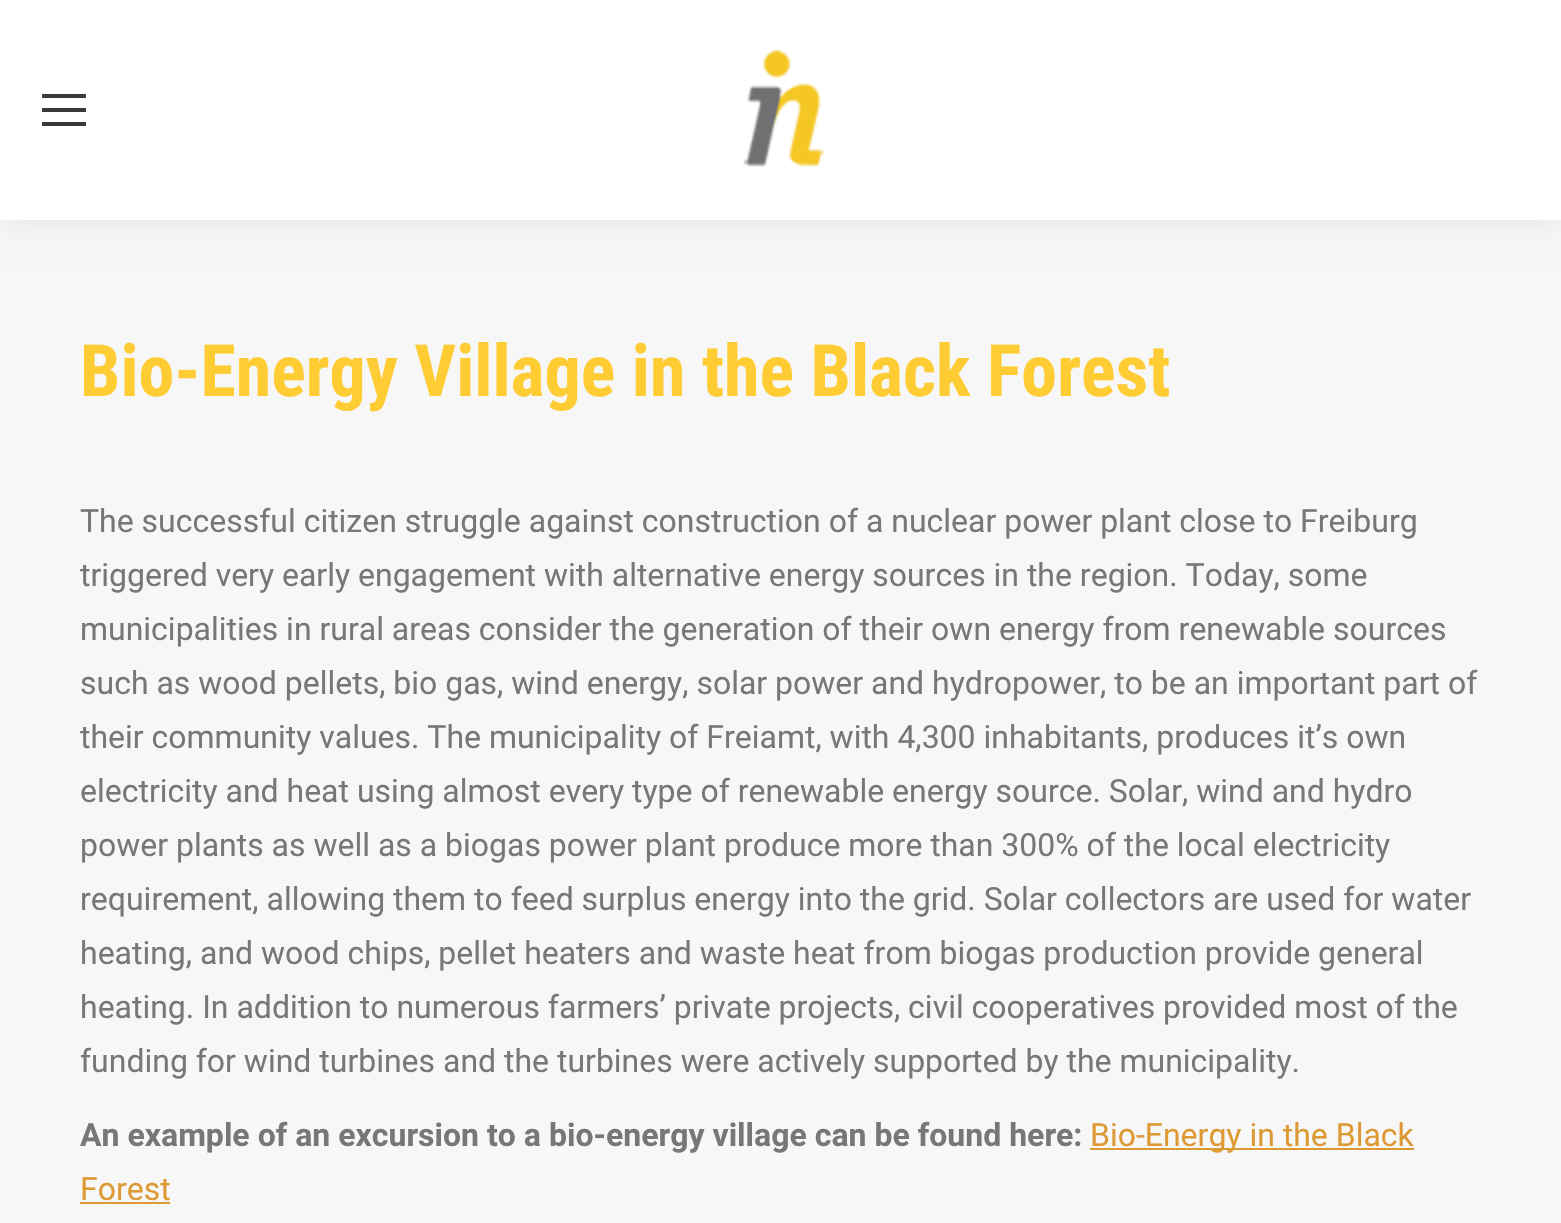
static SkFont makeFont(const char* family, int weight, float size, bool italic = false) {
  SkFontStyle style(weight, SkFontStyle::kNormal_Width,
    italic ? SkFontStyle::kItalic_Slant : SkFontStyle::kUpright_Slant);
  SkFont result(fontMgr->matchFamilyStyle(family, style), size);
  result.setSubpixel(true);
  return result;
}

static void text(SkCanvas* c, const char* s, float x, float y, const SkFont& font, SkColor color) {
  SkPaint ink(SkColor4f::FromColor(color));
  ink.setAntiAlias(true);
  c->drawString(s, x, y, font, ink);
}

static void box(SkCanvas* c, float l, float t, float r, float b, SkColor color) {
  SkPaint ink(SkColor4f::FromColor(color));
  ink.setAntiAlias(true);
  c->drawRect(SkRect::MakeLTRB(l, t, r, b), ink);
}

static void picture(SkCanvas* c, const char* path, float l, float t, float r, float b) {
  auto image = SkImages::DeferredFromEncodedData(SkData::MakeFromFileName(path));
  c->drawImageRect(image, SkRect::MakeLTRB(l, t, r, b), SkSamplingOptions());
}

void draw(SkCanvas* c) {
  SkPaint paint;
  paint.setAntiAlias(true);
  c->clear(0xfff7f7f7);
  paint.setColor(0x12000000);
  paint.setMaskFilter(SkMaskFilter::MakeBlur(kNormal_SkBlurStyle, 15));
  c->drawRect(SkRect::MakeLTRB(-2, -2, 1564, 222), paint);
  paint.setMaskFilter(nullptr);
  box(c, 0, 0, 1561, 220, 0xffffffff);
  box(c, 42, 94, 86, 98, 0xff3a3a3a);
  box(c, 42, 108, 86, 112, 0xff3a3a3a);
  box(c, 42, 122, 86, 126, 0xff3a3a3a);
  picture(c, "img_01.png", 743, 50, 825, 167);
  SkFont face1 = makeFont("Roboto Condensed", 700, 72);
  text(c, "Bio-Energy Village in the Black Forest", 80, 396, face1, 0xffffcc33);
  SkFont face2 = makeFont("Roboto", 400, 32);
  text(c, "The successful citizen struggle against construction of a nuclear power plant close to Freiburg", 80, 532, face2, 0xff777777);
  text(c, "triggered very early engagement with alternative energy sources in the region. Today, some", 80, 586, face2, 0xff777777);
  text(c, "municipalities in rural areas consider the generation of their own energy from renewable sources", 80, 640, face2, 0xff777777);
  text(c, "such as wood pellets, bio gas, wind energy, solar power and hydropower, to be an important part of", 80, 694, face2, 0xff777777);
  text(c, "their community values. The municipality of Freiamt, with 4,300 inhabitants, produces it’s own", 80, 748, face2, 0xff777777);
  text(c, "electricity and heat using almost every type of renewable energy source. Solar, wind and hydro", 80, 802, face2, 0xff777777);
  text(c, "power plants as well as a biogas power plant produce more than 300% of the local electricity", 80, 856, face2, 0xff777777);
  text(c, "requirement, allowing them to feed surplus energy into the grid. Solar collectors are used for water", 80, 910, face2, 0xff777777);
  text(c, "heating, and wood chips, pellet heaters and waste heat from biogas production provide general", 80, 964, face2, 0xff777777);
  text(c, "heating. In addition to numerous farmers’ private projects, civil cooperatives provided most of the", 80, 1018, face2, 0xff777777);
  text(c, "funding for wind turbines and the turbines were actively supported by the municipality.", 80, 1072, face2, 0xff777777);
  SkFont face3 = makeFont("Roboto", 700, 32);
  text(c, "An example of an excursion to a bio-energy village can be found here:", 80, 1146, face3, 0xff777777);
  box(c, 1090, 1148, 1414, 1150, 0xffdd9933);
  text(c, "Bio-Energy in the Black", 1090, 1146, face2, 0xffdd9933);
  text(c, "Forest", 80, 1200, face2, 0xffdd9933);
  box(c, 80, 1202, 170, 1204, 0xffdd9933);
}
